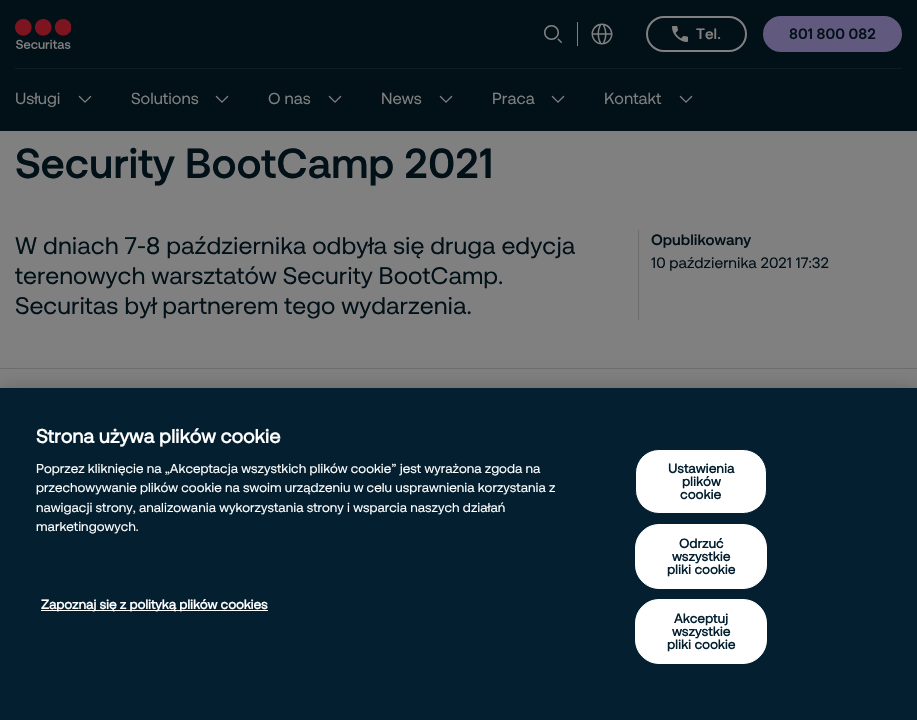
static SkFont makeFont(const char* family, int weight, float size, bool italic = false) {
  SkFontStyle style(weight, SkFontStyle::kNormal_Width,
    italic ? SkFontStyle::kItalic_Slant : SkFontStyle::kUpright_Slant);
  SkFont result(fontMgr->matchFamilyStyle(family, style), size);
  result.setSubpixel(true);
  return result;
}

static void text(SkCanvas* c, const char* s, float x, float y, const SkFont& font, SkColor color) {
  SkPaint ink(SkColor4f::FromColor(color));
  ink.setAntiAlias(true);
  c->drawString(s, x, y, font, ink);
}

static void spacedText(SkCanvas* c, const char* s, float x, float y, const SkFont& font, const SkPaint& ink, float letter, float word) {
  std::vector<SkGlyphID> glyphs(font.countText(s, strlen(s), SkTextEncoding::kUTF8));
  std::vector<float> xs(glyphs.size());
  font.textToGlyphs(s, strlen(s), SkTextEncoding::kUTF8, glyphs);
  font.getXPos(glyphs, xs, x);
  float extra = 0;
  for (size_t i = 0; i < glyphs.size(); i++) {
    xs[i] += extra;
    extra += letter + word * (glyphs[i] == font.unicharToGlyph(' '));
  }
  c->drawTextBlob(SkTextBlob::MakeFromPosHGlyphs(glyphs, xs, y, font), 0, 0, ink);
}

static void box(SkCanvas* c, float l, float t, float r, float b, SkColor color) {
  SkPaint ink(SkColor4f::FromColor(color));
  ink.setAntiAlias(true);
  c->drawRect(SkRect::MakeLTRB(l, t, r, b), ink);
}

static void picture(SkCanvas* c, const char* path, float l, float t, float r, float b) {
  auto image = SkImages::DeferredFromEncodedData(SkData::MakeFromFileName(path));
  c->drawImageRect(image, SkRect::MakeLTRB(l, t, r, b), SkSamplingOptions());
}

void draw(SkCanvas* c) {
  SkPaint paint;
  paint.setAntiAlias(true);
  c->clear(0xff808080);
  box(c, 0, 0, 917, 131, 0xff021018);
  picture(c, "img_01.png", 15, 19, 71, 49);
  picture(c, "img_02.png", 544, 25, 562, 43);
  box(c, 577, 22, 578, 46, 0xff808080);
  picture(c, "img_03.png", 591, 23, 613, 45);
  paint.setStyle(SkPaint::kStroke_Style);
  paint.setStrokeWidth(2);
  paint.setColor(0xff808080);
  c->drawRoundRect(SkRect::MakeLTRB(647, 17, 746, 51), 17, 17, paint);
  picture(c, "img_04.png", 672, 26, 688, 42);
  SkFont face1 = makeFont("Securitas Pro", 700, 15);
  text(c, "Tel.", 696, 39, face1, 0xff808080);
  paint.setStyle(SkPaint::kFill_Style);
  paint.setColor(0xff615a7e);
  c->drawRoundRect(SkRect::MakeLTRB(764, 17, 901, 51), 17, 17, paint);
  paint.setStyle(SkPaint::kStroke_Style);
  c->drawRoundRect(SkRect::MakeLTRB(764, 17, 901, 51), 17, 17, paint);
  text(c, "801 800 082", 789, 39, face1, 0xff021018);
  box(c, 15, 68, 902, 69, 0xff0e1c25);
  SkFont face2 = makeFont("Securitas Pro", 400, 16);
  text(c, "Usługi", 15, 104, face2, 0xff808080);
  picture(c, "img_05.png", 78, 95, 92, 103);
  text(c, "Solutions", 131, 104, face2, 0xff808080);
  picture(c, "img_05.png", 215, 95, 229, 103);
  text(c, "O nas", 268, 104, face2, 0xff808080);
  picture(c, "img_05.png", 328, 95, 342, 103);
  text(c, "News", 381, 104, face2, 0xff808080);
  picture(c, "img_05.png", 439, 95, 453, 103);
  text(c, "Praca", 492, 104, face2, 0xff808080);
  picture(c, "img_05.png", 551, 95, 565, 103);
  text(c, "Kontakt", 604, 104, face2, 0xff808080);
  picture(c, "img_05.png", 679, 95, 693, 103);
  SkFont face3 = makeFont("Securitas Pro", 700, 42);
  paint.setStyle(SkPaint::kFill_Style);
  paint.setColor(0xff021018);
  spacedText(c, "Security BootCamp 2021", 15, 178, face3, paint, -0.2f, 0);
  SkFont face4 = makeFont("Securitas Pro", 400, 24);
  text(c, "W dniach 7-8 października odbyła się druga edycja", 15, 254, face4, 0xff021018);
  text(c, "terenowych warsztatów Security BootCamp.", 15, 284, face4, 0xff021018);
  text(c, "Securitas był partnerem tego wydarzenia.", 15, 314, face4, 0xff021018);
  box(c, 638, 230, 639, 320, 0xff6c6c6b);
  text(c, "Opublikowany", 651, 245, face1, 0xff021018);
  SkFont face5 = makeFont("Securitas Pro", 400, 15);
  text(c, "10 października 2021 17:32", 651, 268, face5, 0xff021018);
  box(c, 0, 368, 917, 369, 0xff6c6c6b);
  paint.setColor(0x33000000);
  paint.setMaskFilter(SkMaskFilter::MakeBlur(kNormal_SkBlurStyle, 9));
  c->drawRect(SkRect::MakeLTRB(0, 388, 917, 720), paint);
  paint.setMaskFilter(nullptr);
  box(c, 0, 388, 917, 720, 0xff031f30);
  SkFont face6 = makeFont("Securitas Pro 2", 700, 19.25f);
  text(c, "Strona używa plików cookie", 36, 443, face6, 0xffffffff);
  SkFont face7 = makeFont("Securitas Pro", 400, 13);
  text(c, "Poprzez kliknięcie na „Akceptacja wszystkich plików cookie” jest wyrażona zgoda na", 36, 473, face7, 0xffffffff);
  text(c, "przechowywanie plików cookie na swoim urządzeniu w celu usprawnienia korzystania z", 36, 492, face7, 0xffffffff);
  text(c, "nawigacji strony, analizowania wykorzystania strony i wsparcia naszych działań", 36, 512, face7, 0xffffffff);
  text(c, "marketingowych.", 36, 531, face7, 0xffffffff);
  box(c, 41, 610, 268, 611, 0xffffffff);
  SkFont face8 = makeFont("Securitas Pro 2", 700, 13);
  text(c, "Zapoznaj się z polityką plików cookies", 41, 609, face8, 0xffffffff);
  paint.setColor(0xffffffff);
  c->drawRoundRect(SkRect::MakeLTRB(635.5f, 449.5f, 766.5f, 513.5f), 23.5f, 23.5f, paint);
  paint.setStyle(SkPaint::kStroke_Style);
  paint.setStrokeWidth(1);
  paint.setColor(0xff031f30);
  c->drawRoundRect(SkRect::MakeLTRB(635.5f, 449.5f, 766.5f, 513.5f), 23.5f, 23.5f, paint);
  paint.setStyle(SkPaint::kFill_Style);
  spacedText(c, "Ustawienia", 668, 473, face8, paint, 0.1f, 0);
  spacedText(c, "plików", 682, 486, face8, paint, 0.1f, 0);
  spacedText(c, "cookie", 680, 499, face8, paint, 0.1f, 0);
  paint.setColor(0xffffffff);
  c->drawRoundRect(SkRect::MakeLTRB(635.5f, 524.5f, 766.5f, 588.5f), 23.5f, 23.5f, paint);
  paint.setStyle(SkPaint::kStroke_Style);
  c->drawRoundRect(SkRect::MakeLTRB(635.5f, 524.5f, 766.5f, 588.5f), 23.5f, 23.5f, paint);
  paint.setStyle(SkPaint::kFill_Style);
  paint.setColor(0xff031f30);
  spacedText(c, "Odrzuć", 679, 548, face8, paint, 0.1f, 0);
  spacedText(c, "wszystkie", 672, 561, face8, paint, 0.1f, 0);
  spacedText(c, "pliki cookie", 667, 574, face8, paint, 0.1f, 0);
  paint.setColor(0xffffffff);
  c->drawRoundRect(SkRect::MakeLTRB(635.5f, 599.5f, 766.5f, 663.5f), 23.5f, 23.5f, paint);
  paint.setStyle(SkPaint::kStroke_Style);
  c->drawRoundRect(SkRect::MakeLTRB(635.5f, 599.5f, 766.5f, 663.5f), 23.5f, 23.5f, paint);
  paint.setStyle(SkPaint::kFill_Style);
  paint.setColor(0xff031f30);
  spacedText(c, "Akceptuj", 674, 623, face8, paint, 0.1f, 0);
  spacedText(c, "wszystkie", 672, 636, face8, paint, 0.1f, 0);
  spacedText(c, "pliki cookie", 667, 649, face8, paint, 0.1f, 0);
}
